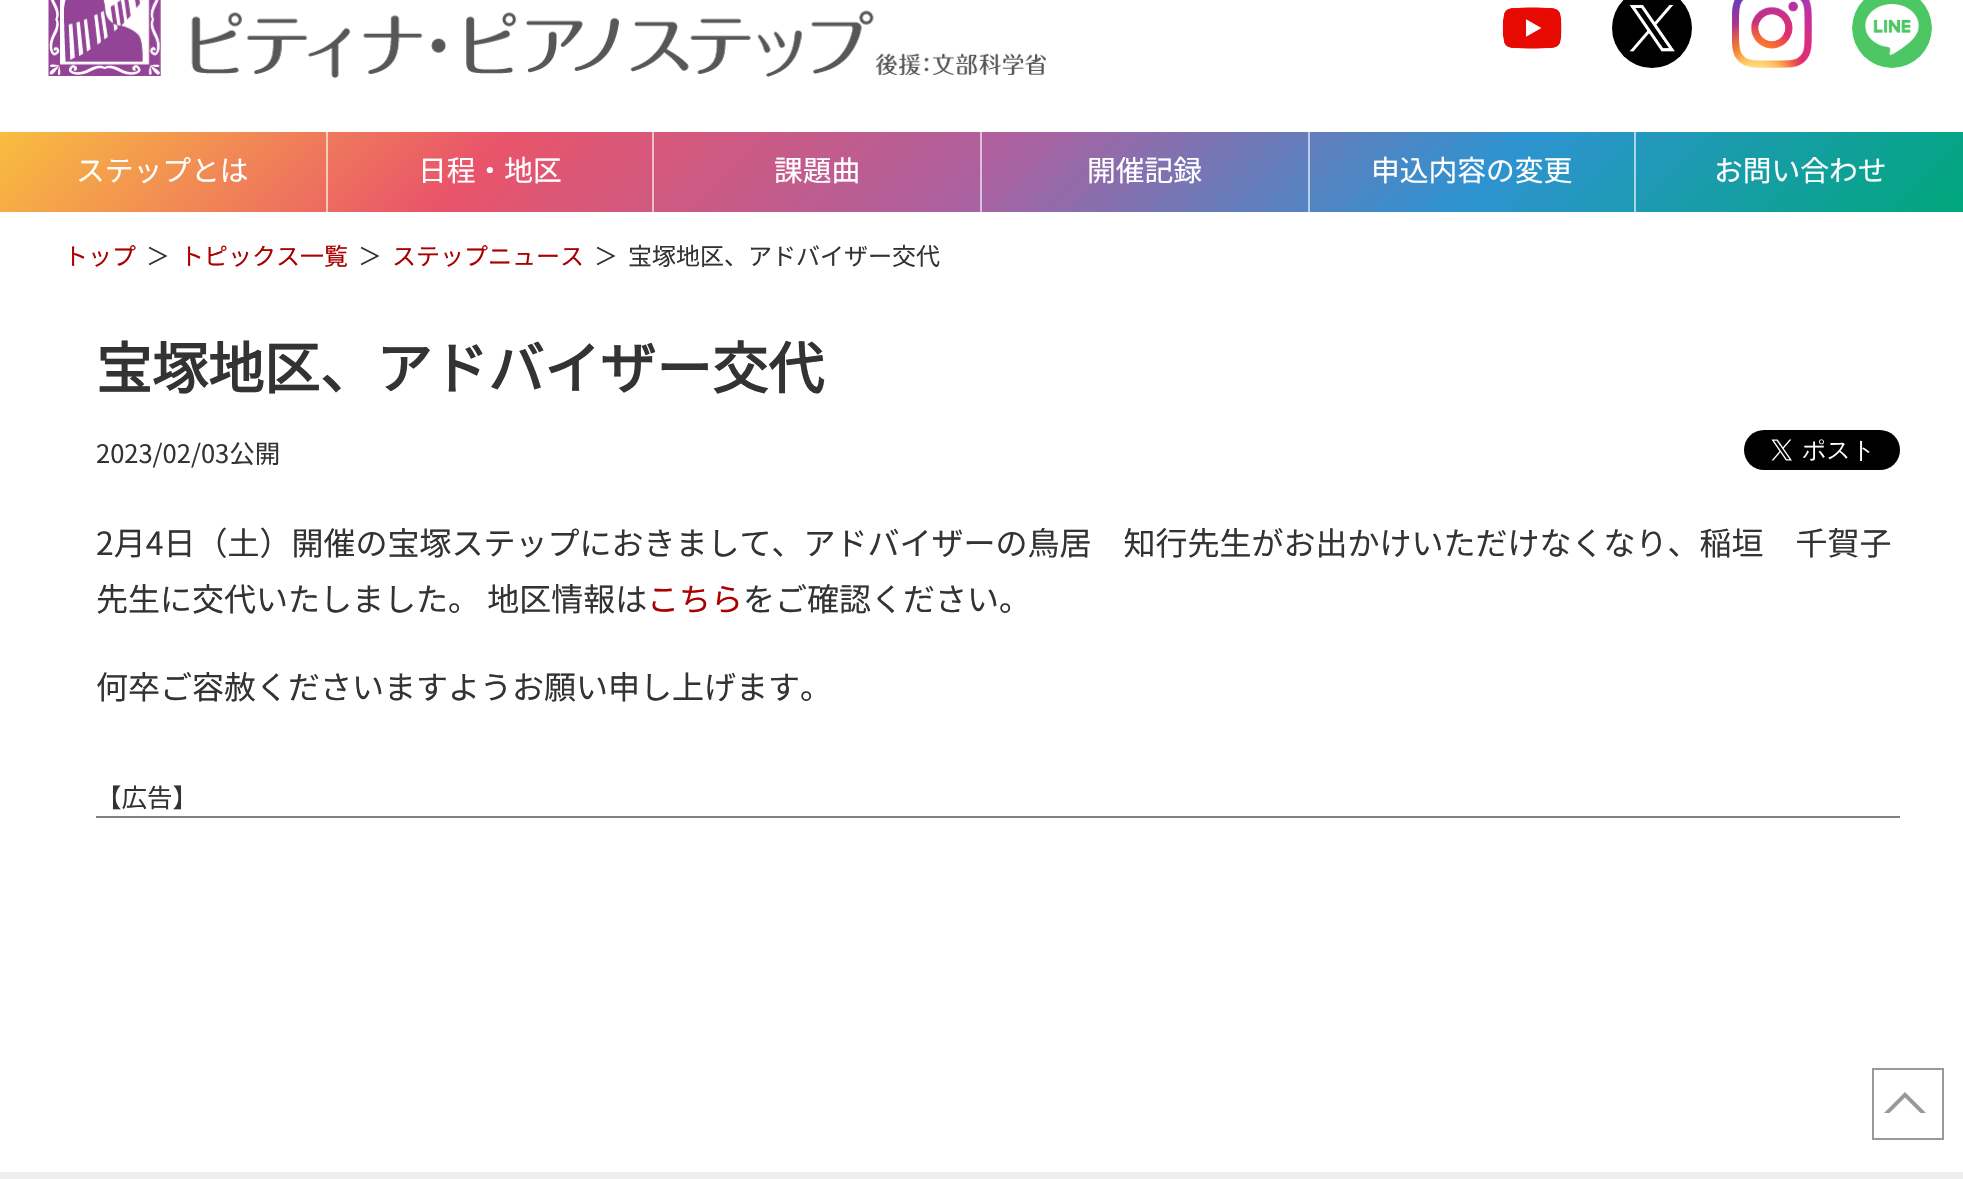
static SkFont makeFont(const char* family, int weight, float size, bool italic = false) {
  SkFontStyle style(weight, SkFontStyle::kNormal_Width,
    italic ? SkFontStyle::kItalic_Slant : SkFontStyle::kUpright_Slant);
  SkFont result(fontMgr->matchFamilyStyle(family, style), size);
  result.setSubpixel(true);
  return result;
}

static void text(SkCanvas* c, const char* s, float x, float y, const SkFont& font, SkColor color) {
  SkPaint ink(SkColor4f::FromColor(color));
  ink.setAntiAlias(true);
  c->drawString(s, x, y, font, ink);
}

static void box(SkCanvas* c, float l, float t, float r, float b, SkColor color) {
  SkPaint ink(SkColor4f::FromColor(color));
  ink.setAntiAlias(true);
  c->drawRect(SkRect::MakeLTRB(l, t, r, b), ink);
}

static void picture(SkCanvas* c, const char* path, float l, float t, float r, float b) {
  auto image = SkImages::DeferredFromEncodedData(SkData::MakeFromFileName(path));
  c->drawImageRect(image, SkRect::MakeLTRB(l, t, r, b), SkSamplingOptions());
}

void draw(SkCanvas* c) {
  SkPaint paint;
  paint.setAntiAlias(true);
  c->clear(0xffffffff);
  picture(c, "img_01.png", 48, 0, 1046, 78);
  picture(c, "img_02.png", 1502, 7, 1562, 49);
  picture(c, "img_03.png", 1612, 0, 1692, 68);
  picture(c, "img_04.png", 1732, 0, 1812, 68);
  picture(c, "img_05.png", 1852, 0, 1932, 68);
  {
    const SkColor colors[] = {0xfff9bd3f, 0xffe9546a, 0xffad609f, 0xff2e93d1, 0xff00a77b};
    const float stops[] = {0, 0.25f, 0.5f, 0.75f, 1};
    const SkPoint ends[] = {{471, -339}, {1493, 683}};
    paint.setShader(SkGradientShader::MakeLinear(ends, colors, stops, 5, SkTileMode::kClamp));
    paint.setAlpha(255);
  }
  c->drawRect(SkRect::MakeLTRB(0, 132, 1963, 212), paint);
  {
    const SkColor colors[] = {0xfffde5b2, 0xfff6bbc3, 0xffdebfd9, 0xffabd4ed, 0xff99dcca};
    const float stops[] = {0, 0.25f, 0.5f, 0.75f, 1};
    const SkPoint ends[] = {{471, -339}, {1493, 683}};
    paint.setShader(SkGradientShader::MakeLinear(ends, colors, stops, 5, SkTileMode::kClamp));
    paint.setAlpha(255);
  }
  c->drawRect(SkRect::MakeLTRB(1634, 132, 1636, 212), paint);
  c->drawRect(SkRect::MakeLTRB(1308, 132, 1310, 212), paint);
  c->drawRect(SkRect::MakeLTRB(980, 132, 982, 212), paint);
  c->drawRect(SkRect::MakeLTRB(652, 132, 654, 212), paint);
  c->drawRect(SkRect::MakeLTRB(326, 132, 328, 212), paint);
  SkFont face1 = makeFont("Noto Sans JP", 100, 28.75f);
  text(c, "ステップとは", 76, 181, face1, 0xffffffff);
  text(c, "日程・地区", 418, 181, face1, 0xffffffff);
  text(c, "課題曲", 774, 181, face1, 0xffffffff);
  text(c, "開催記録", 1087, 181, face1, 0xffffffff);
  text(c, "申込内容の変更", 1371, 181, face1, 0xffffffff);
  text(c, "お問い合わせ", 1714, 181, face1, 0xffffffff);
  SkFont face2 = makeFont("Noto Sans JP", 100, 24);
  text(c, "トップ", 64, 265, face2, 0xffaa0000);
  text(c, "＞", 146, 265, face2, 0xff333333);
  text(c, "トピックス一覧", 180, 265, face2, 0xffaa0000);
  text(c, "＞", 358, 265, face2, 0xff333333);
  text(c, "ステップニュース", 392, 265, face2, 0xffaa0000);
  text(c, "＞", 594, 265, face2, 0xff333333);
  text(c, "宝塚地区、アドバイザー交代", 628, 265, face2, 0xff333333);
  SkFont face3 = makeFont("Noto Sans JP", 700, 56);
  text(c, "宝塚地区、アドバイザー交代", 96, 389, face3, 0xff333333);
  SkFont face4 = makeFont("Noto Sans JP", 100, 25.5f);
  text(c, "2023/02/03公開", 96, 463, face4, 0xff333333);
  picture(c, "img_06.png", 1744, 430, 1900, 470);
  SkFont face5 = makeFont("Noto Sans JP", 100, 32);
  text(c, "2月4日（土）開催の宝塚ステップにおきまして、アドバイザーの鳥居　知行先生がお出かけいただけなくなり、稲垣　千賀子", 96, 555, face5, 0xff333333);
  text(c, "先生に交代いたしました。 地区情報は", 96, 611, face5, 0xff333333);
  text(c, "こちら", 647, 611, face5, 0xffaa0000);
  text(c, "をご確認ください。", 743, 611, face5, 0xff333333);
  text(c, "何卒ご容赦くださいますようお願い申し上げます。", 96, 699, face5, 0xff333333);
  box(c, 96, 816, 1900, 818, 0xff808080);
  text(c, "【広告】", 96, 807, face4, 0xff333333);
  paint.setStyle(SkPaint::kStroke_Style);
  paint.setStrokeWidth(2);
  paint.setShader(nullptr);
  paint.setColor(0xff999999);
  c->drawRect(SkRect::MakeLTRB(1873, 1069, 1943, 1139), paint);
  paint.setStyle(SkPaint::kFill_Style);
  c->drawPath(SkPathBuilder().moveTo(1884, 1113).lineTo(1905, 1092).lineTo(1905, 1097.5f).lineTo(1889.5f, 1113).close().moveTo(1905, 1092).lineTo(1926, 1113).lineTo(1920.5f, 1113).lineTo(1905, 1097.5f).close().detach(), paint);
  box(c, 0, 1172, 1963, 1179, 0xffeeeeee);
}
